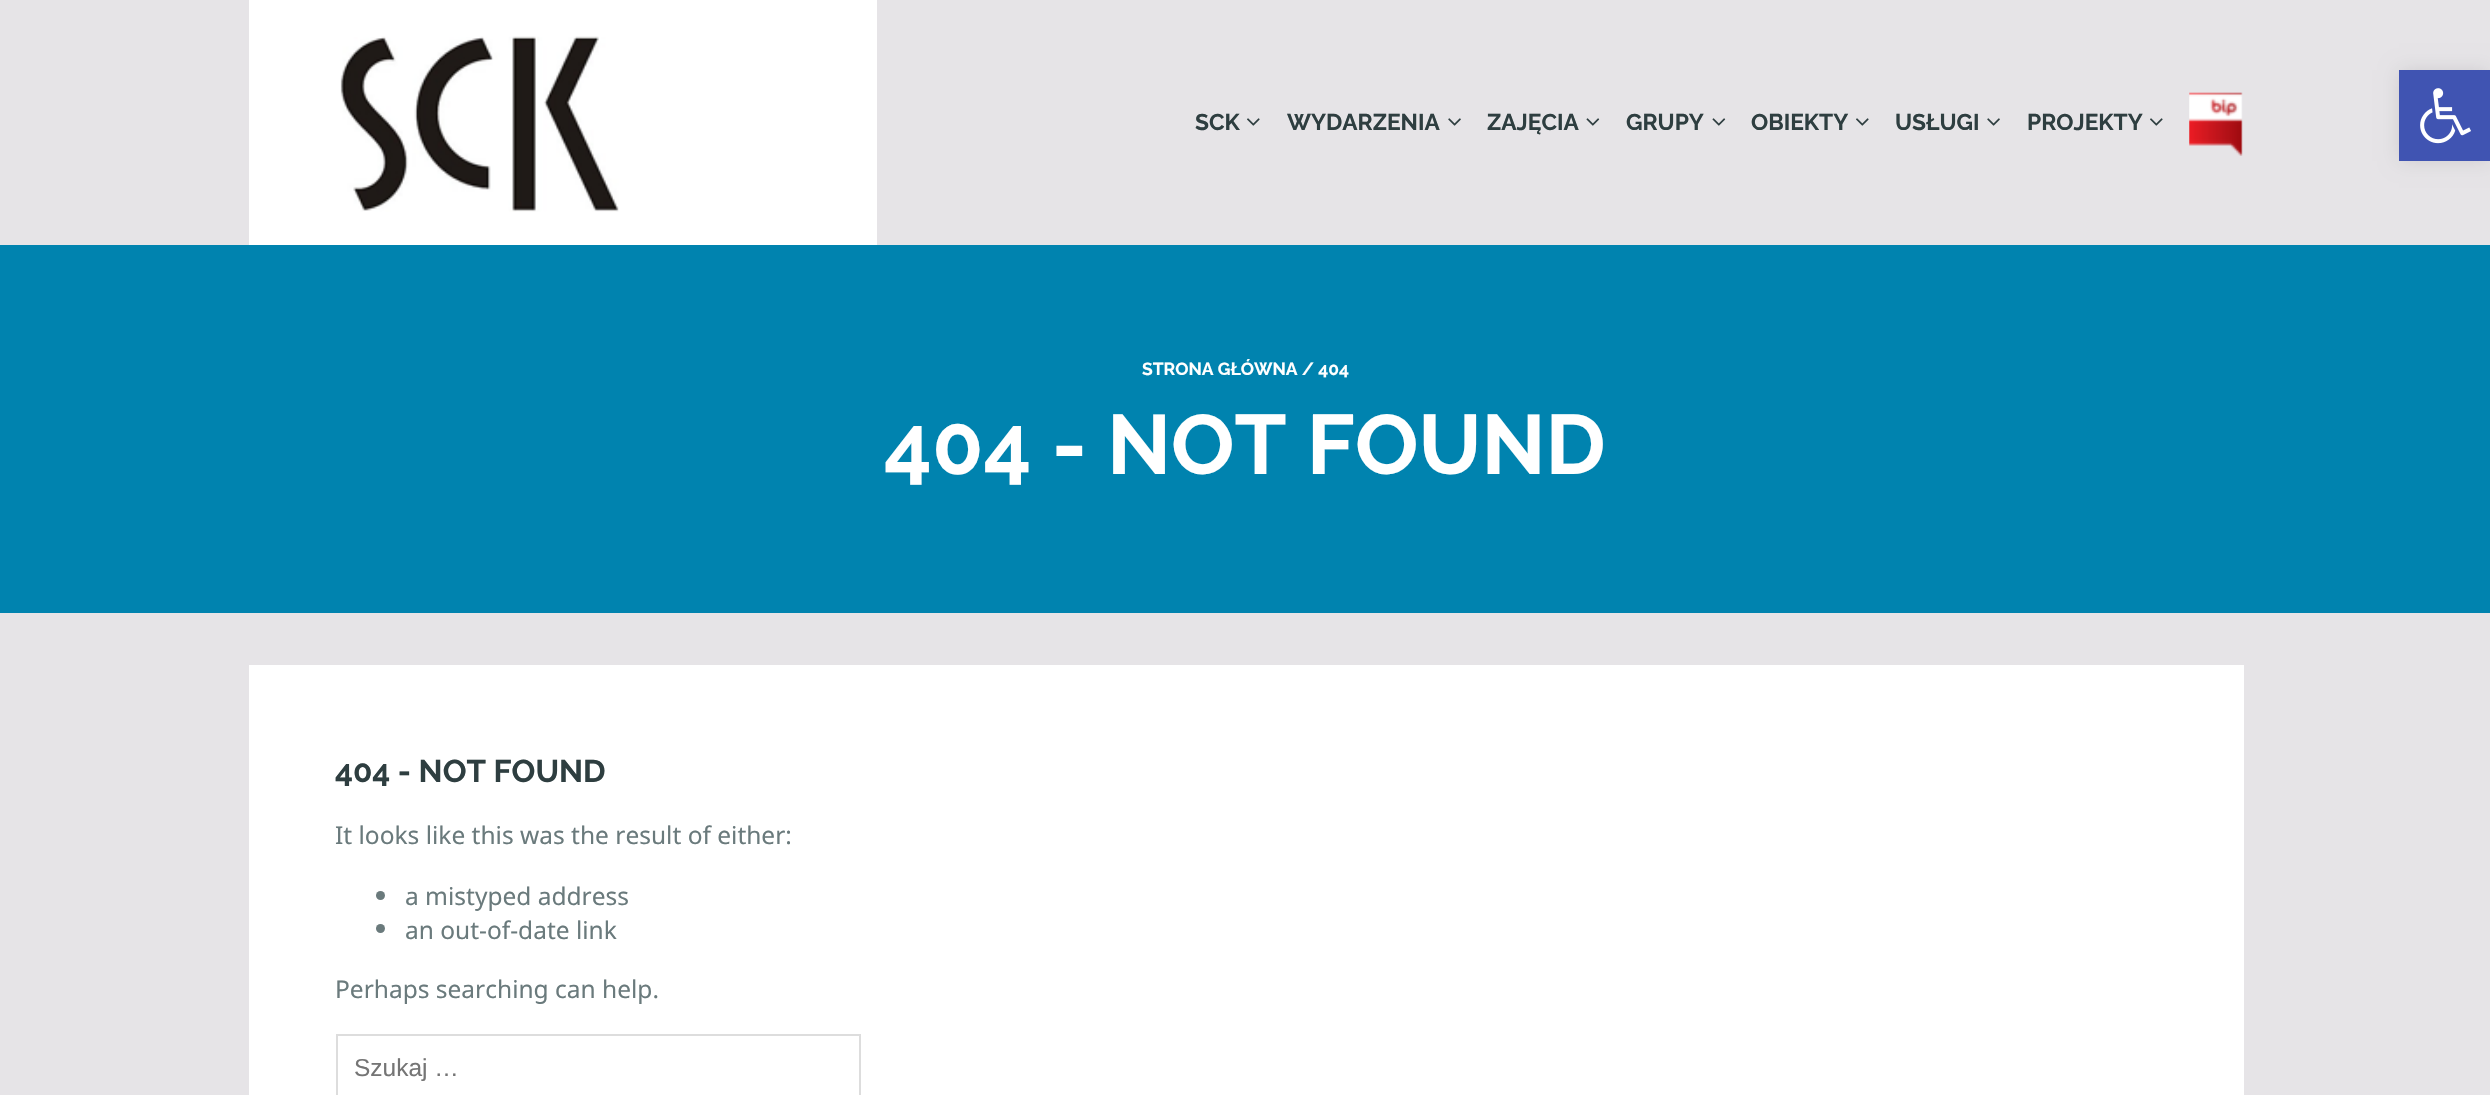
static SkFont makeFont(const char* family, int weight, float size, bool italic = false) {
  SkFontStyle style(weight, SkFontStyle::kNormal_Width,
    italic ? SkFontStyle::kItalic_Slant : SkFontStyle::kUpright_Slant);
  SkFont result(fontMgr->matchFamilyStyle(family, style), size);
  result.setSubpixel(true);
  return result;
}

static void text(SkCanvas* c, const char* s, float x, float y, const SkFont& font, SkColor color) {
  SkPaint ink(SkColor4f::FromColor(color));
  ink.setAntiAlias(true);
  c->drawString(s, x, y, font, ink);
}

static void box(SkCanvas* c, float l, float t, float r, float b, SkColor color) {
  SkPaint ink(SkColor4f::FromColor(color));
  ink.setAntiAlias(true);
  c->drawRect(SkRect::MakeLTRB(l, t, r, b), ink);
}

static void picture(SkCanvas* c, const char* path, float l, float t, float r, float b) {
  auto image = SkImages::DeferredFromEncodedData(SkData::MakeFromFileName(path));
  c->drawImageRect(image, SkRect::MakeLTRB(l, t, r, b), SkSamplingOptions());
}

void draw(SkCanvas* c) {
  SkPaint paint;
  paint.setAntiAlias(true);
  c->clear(0xffe6e4e7);
  box(c, 249, 0, 877, 245, 0xffffffff);
  picture(c, "img_01.png", 340, 36, 619, 212);
  SkFont face1 = makeFont("Raleway", 700, 22.75f);
  text(c, "SCK", 1195, 130, face1, 0xff2e3e40);
  picture(c, "img_02.png", 1247, 118, 1260, 126);
  text(c, "WYDARZENIA", 1287, 130, face1, 0xff2e3e40);
  picture(c, "img_03.png", 1448, 118, 1461, 126);
  text(c, "ZAJĘCIA", 1487, 130, face1, 0xff2e3e40);
  picture(c, "img_04.png", 1586, 118, 1600, 126);
  text(c, "GRUPY", 1626, 130, face1, 0xff2e3e40);
  picture(c, "img_04.png", 1712, 118, 1726, 126);
  text(c, "OBIEKTY", 1751, 130, face1, 0xff2e3e40);
  picture(c, "img_02.png", 1856, 118, 1869, 126);
  text(c, "USŁUGI", 1895, 130, face1, 0xff2e3e40);
  picture(c, "img_03.png", 1987, 118, 2000, 126);
  text(c, "PROJEKTY", 2027, 130, face1, 0xff2e3e40);
  picture(c, "img_02.png", 2150, 118, 2163, 126);
  picture(c, "img_05.png", 2189, 92, 2243, 156);
  box(c, 0, 245, 2490, 613, 0xff0083af);
  SkFont face2 = makeFont("Raleway", 700, 17.5f);
  text(c, "STRONA GŁÓWNA / 404", 1142, 375, face2, 0xffffffff);
  SkFont face3 = makeFont("Raleway", 700, 84);
  text(c, "404 - NOT FOUND", 884, 474, face3, 0xffffffff);
  box(c, 249, 665, 2244, 1095, 0xffffffff);
  SkFont face4 = makeFont("Raleway", 700, 31.5f);
  text(c, "404 - NOT FOUND", 335, 782, face4, 0xff2e3e40);
  SkFont face5 = makeFont("Noto Sans", 400, 24.5f);
  text(c, "It looks like this was the result of either:", 335, 844, face5, 0xff6a7a7c);
  paint.setColor(0xff6a7a7c);
  c->drawCircle(380.5f, 895.5f, 4.5f, paint);
  text(c, "a mistyped address", 405, 905, face5, 0xff6a7a7c);
  c->drawCircle(380.5f, 928.5f, 4.5f, paint);
  text(c, "an out-of-date link", 405, 939, face5, 0xff6a7a7c);
  text(c, "Perhaps searching can help.", 335, 998, face5, 0xff6a7a7c);
  paint.setStyle(SkPaint::kStroke_Style);
  paint.setStrokeWidth(2);
  paint.setColor(0xffdddddd);
  c->drawRect(SkRect::MakeLTRB(337, 1035, 860, 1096), paint);
  SkFont face6 = makeFont("Liberation Sans", 400, 24.5f);
  text(c, "Szukaj …", 354, 1076, face6, 0xff757575);
  paint.setStyle(SkPaint::kFill_Style);
  paint.setColor(0x1a000000);
  paint.setMaskFilter(SkMaskFilter::MakeBlur(kNormal_SkBlurStyle, 9));
  c->drawRect(SkRect::MakeLTRB(2399, 70, 2490, 161), paint);
  paint.setMaskFilter(nullptr);
  box(c, 2399, 70, 2490, 161, 0xff4054b2);
  picture(c, "img_06.png", 2420, 88, 2471, 144);
}
